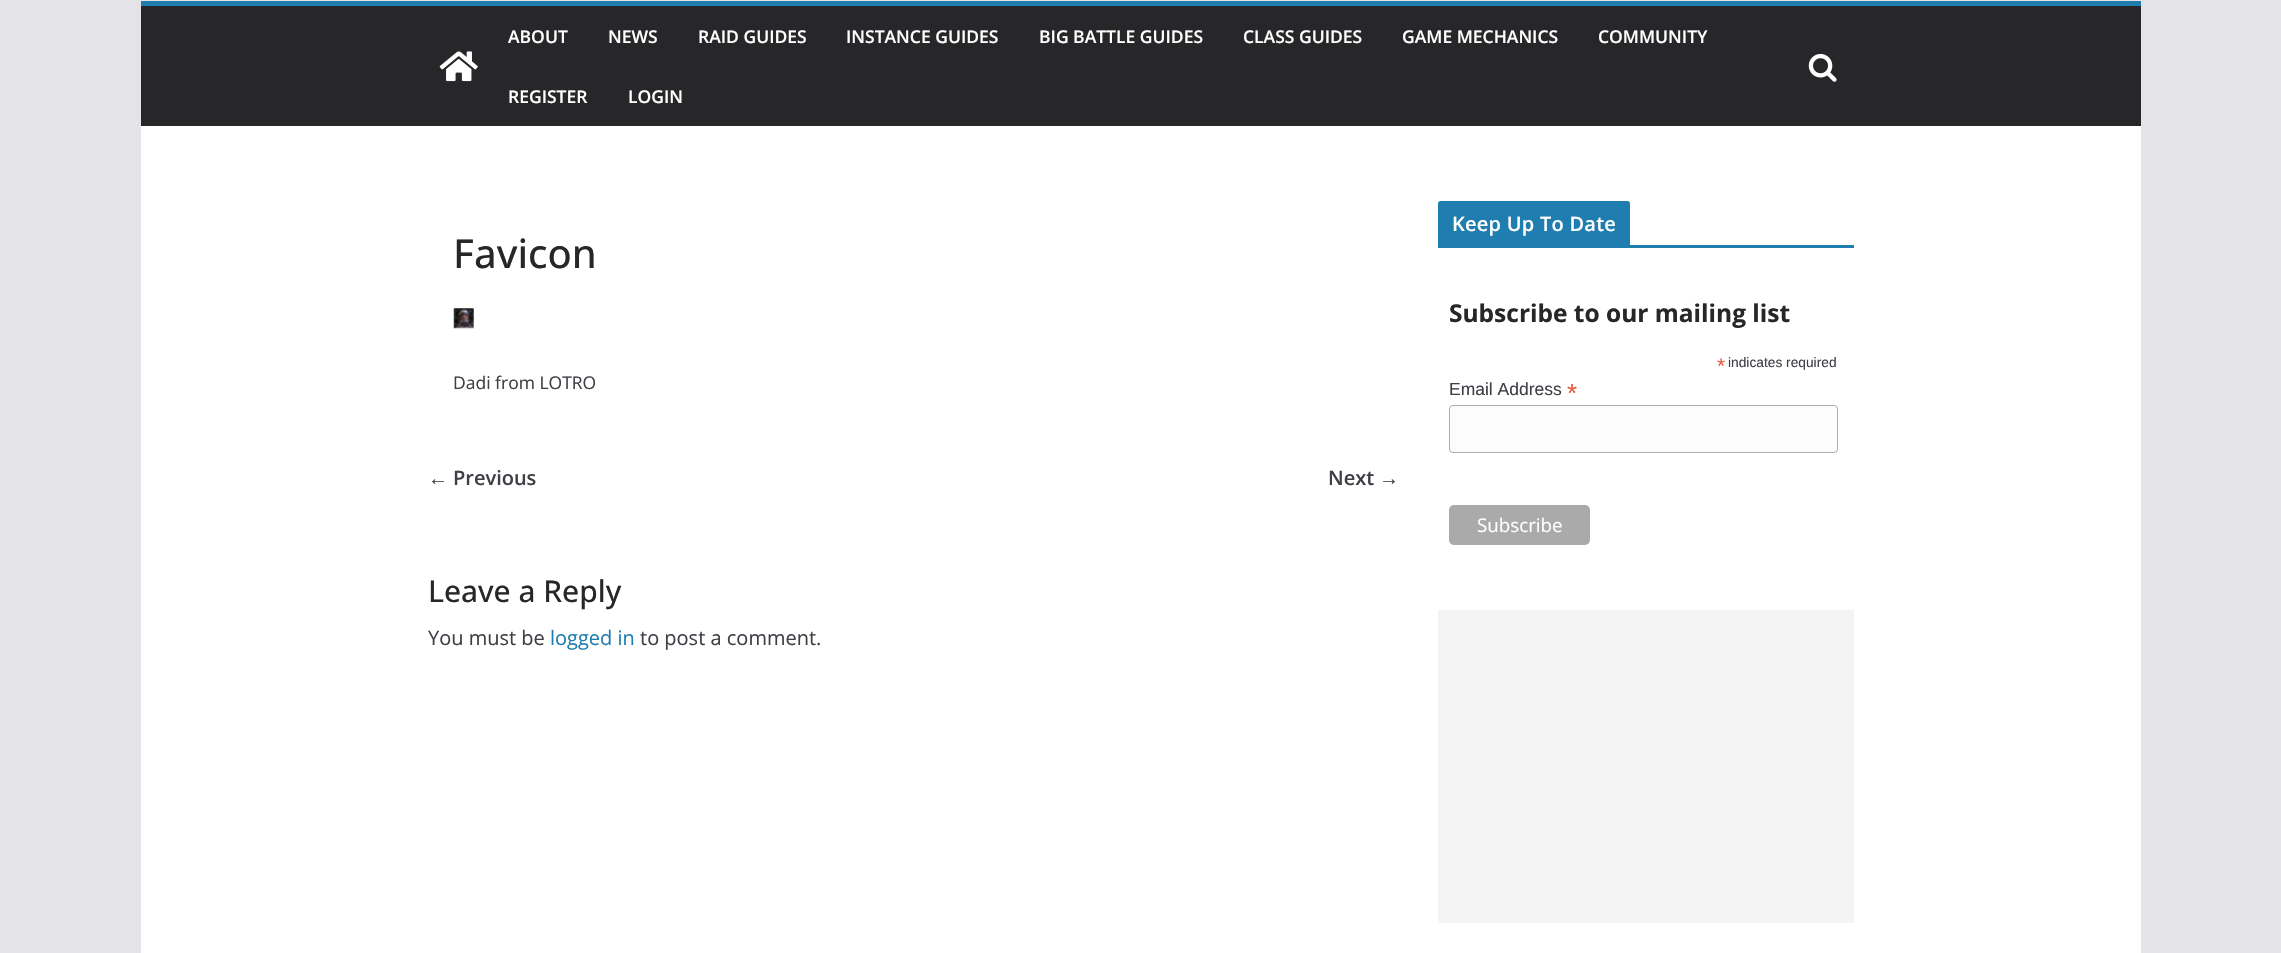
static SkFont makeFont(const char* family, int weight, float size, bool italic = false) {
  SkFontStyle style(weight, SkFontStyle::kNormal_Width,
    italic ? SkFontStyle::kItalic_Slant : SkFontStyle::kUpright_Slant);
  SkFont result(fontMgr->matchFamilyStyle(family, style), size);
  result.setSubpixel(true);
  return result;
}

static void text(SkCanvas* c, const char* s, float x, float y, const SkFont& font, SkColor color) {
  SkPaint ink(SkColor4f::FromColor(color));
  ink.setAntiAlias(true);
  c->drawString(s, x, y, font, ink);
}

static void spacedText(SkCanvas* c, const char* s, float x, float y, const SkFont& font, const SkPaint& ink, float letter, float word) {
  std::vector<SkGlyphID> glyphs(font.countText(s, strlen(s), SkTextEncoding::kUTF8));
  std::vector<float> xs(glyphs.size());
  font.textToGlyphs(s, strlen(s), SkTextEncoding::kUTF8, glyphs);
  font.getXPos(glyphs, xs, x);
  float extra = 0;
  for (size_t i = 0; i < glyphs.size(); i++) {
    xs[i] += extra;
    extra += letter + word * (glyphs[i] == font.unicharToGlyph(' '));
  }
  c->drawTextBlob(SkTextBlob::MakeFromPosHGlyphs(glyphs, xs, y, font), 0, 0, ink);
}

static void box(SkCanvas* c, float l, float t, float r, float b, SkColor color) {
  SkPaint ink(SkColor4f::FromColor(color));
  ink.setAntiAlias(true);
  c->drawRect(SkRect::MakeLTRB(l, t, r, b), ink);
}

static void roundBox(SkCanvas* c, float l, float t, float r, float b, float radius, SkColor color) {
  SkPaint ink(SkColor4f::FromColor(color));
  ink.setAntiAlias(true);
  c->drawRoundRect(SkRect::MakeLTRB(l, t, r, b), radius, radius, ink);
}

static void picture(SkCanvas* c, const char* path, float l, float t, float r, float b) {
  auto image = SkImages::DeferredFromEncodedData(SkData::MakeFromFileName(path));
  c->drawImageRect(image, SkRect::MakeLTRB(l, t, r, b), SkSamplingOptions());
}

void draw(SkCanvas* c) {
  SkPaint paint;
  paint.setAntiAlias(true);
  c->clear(0xffe4e4e7);
  box(c, 141, 6, 2141, 126, 0xff27272a);
  box(c, 141, 1, 2141, 6, 0xff207daf);
  picture(c, "img_01.png", 439, 51, 478, 82);
  SkFont face1 = makeFont("Open Sans", 600, 17.5f);
  text(c, "ABOUT", 508, 43, face1, 0xffffffff);
  text(c, "NEWS", 608, 43, face1, 0xffffffff);
  text(c, "RAID GUIDES", 698, 43, face1, 0xffffffff);
  text(c, "INSTANCE GUIDES", 846, 43, face1, 0xffffffff);
  text(c, "BIG BATTLE GUIDES", 1039, 43, face1, 0xffffffff);
  text(c, "CLASS GUIDES", 1243, 43, face1, 0xffffffff);
  text(c, "GAME MECHANICS", 1402, 43, face1, 0xffffffff);
  text(c, "COMMUNITY", 1598, 43, face1, 0xffffffff);
  text(c, "REGISTER", 508, 103, face1, 0xffffffff);
  text(c, "LOGIN", 628, 103, face1, 0xffffffff);
  picture(c, "img_02.png", 1808, 53, 1837, 82);
  box(c, 141, 126, 2141, 953, 0xffffffff);
  SkFont face2 = makeFont("Open Sans", 500, 40);
  text(c, "Favicon", 453, 268, face2, 0xff27272a);
  picture(c, "img_03.png", 453, 308, 474, 329);
  SkFont face3 = makeFont("Open Sans", 400, 17.5f);
  text(c, "Dadi from LOTRO", 453, 389, face3, 0xff3f3f46);
  SkFont face4 = makeFont("Liberation Serif", 700, 20);
  text(c, "←", 428, 485, face4, 0xff3f3f46);
  SkFont face5 = makeFont("Open Sans", 600, 20);
  text(c, "Previous", 453, 485, face5, 0xff3f3f46);
  text(c, "Next", 1328, 485, face5, 0xff3f3f46);
  text(c, "→", 1379, 485, face4, 0xff3f3f46);
  SkFont face6 = makeFont("Open Sans", 500, 30);
  text(c, "Leave a Reply", 428, 602, face6, 0xff27272a);
  SkFont face7 = makeFont("Open Sans", 400, 20);
  text(c, "You must be", 428, 645, face7, 0xff3f3f46);
  text(c, "logged in", 550, 645, face7, 0xff207daf);
  text(c, "to post a comment.", 640, 645, face7, 0xff3f3f46);
  box(c, 1438, 245, 1854, 248, 0xff207daf);
  paint.setColor(0xff207daf);
  c->drawPath(SkPathBuilder().moveTo(1440.5f, 201).lineTo(1627.5f, 201).cubicTo(1629, 201, 1630, 202, 1630, 203.5f).lineTo(1630, 245).lineTo(1438, 245).lineTo(1438, 203.5f).cubicTo(1438, 202, 1439, 201, 1440.5f, 201).close().detach(), paint);
  paint.setColor(0xffffffff);
  spacedText(c, "Keep Up To Date", 1452, 231, face5, paint, 0.25f, 0);
  SkFont face8 = makeFont("Open Sans", 700, 24.5f);
  text(c, "Subscribe to our mailing list", 1449, 322, face8, 0xff27272a);
  SkFont face9 = makeFont("Liberation Sans", 400, 21);
  text(c, "*", 1717, 373, face9, 0xffe85c41);
  SkFont face10 = makeFont("Liberation Sans", 400, 13.75f);
  text(c, "indicates required", 1728, 367, face10, 0xff3f3f46);
  SkFont face11 = makeFont("Liberation Sans", 400, 17.5f);
  text(c, "Email Address", 1449, 395, face11, 0xff3f3f46);
  SkFont face12 = makeFont("Liberation Sans", 400, 26);
  text(c, "*", 1567, 402, face12, 0xffe85c41);
  paint.setColor(0xfffcfcfc);
  c->drawRoundRect(SkRect::MakeLTRB(1449.5f, 405.5f, 1837.5f, 452.5f), 3.5f, 3.5f, paint);
  paint.setStyle(SkPaint::kStroke_Style);
  paint.setStrokeWidth(1);
  paint.setColor(0xffabb0b2);
  c->drawRoundRect(SkRect::MakeLTRB(1449.5f, 405.5f, 1837.5f, 452.5f), 3.5f, 3.5f, paint);
  roundBox(c, 1449, 505, 1590, 545, 5, 0xffaaaaaa);
  SkFont face13 = makeFont("Open Sans", 400, 18.75f);
  text(c, "Subscribe", 1477, 532, face13, 0xffffffff);
  box(c, 1438, 610, 1854, 923, 0xfff4f4f5);
}
